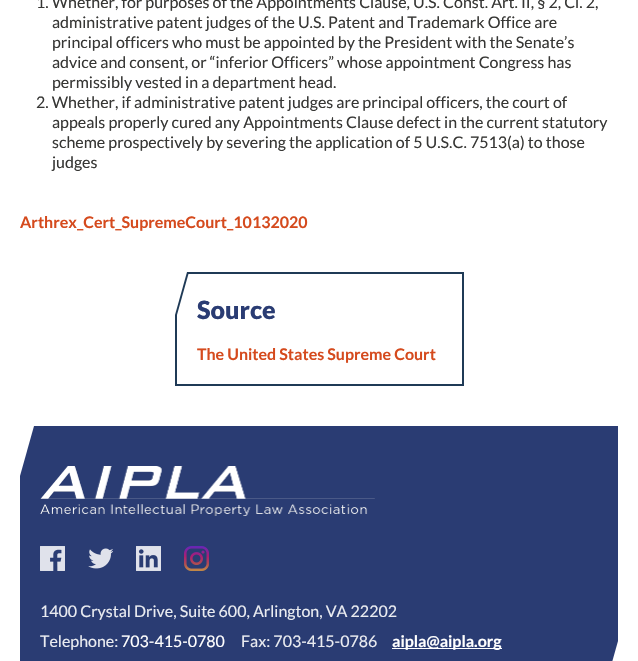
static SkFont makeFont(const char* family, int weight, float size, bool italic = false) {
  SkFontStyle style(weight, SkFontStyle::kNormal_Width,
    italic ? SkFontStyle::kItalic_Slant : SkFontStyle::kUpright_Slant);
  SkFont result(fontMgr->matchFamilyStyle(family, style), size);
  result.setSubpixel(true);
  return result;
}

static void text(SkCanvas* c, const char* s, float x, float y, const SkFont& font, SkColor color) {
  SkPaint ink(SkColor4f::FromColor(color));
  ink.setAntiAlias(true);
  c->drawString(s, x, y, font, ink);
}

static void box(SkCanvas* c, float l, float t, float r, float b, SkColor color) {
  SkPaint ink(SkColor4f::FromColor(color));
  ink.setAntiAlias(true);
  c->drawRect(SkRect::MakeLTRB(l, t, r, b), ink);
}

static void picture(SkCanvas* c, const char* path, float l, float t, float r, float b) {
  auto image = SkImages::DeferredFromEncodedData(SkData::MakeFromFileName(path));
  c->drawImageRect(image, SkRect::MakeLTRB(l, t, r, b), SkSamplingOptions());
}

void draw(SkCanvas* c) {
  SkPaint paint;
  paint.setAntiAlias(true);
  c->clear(0xffffffff);
  SkFont face1 = makeFont("Lato", 400, 16);
  text(c, "1. Whether, for purposes of the Appointments Clause, U.S. Const. Art. II, § 2, Cl. 2,", 36, 8, face1, 0xff373735);
  text(c, "administrative patent judges of the U.S. Patent and Trademark Office are", 52, 28, face1, 0xff373735);
  text(c, "principal officers who must be appointed by the President with the Senate’s", 52, 48, face1, 0xff373735);
  text(c, "advice and consent, or “inferior Officers” whose appointment Congress has", 52, 68, face1, 0xff373735);
  text(c, "permissibly vested in a department head.", 52, 88, face1, 0xff373735);
  text(c, "2. Whether, if administrative patent judges are principal officers, the court of", 36, 108, face1, 0xff373735);
  text(c, "appeals properly cured any Appointments Clause defect in the current statutory", 52, 128, face1, 0xff373735);
  text(c, "scheme prospectively by severing the application of 5 U.S.C. 7513(a) to those", 52, 148, face1, 0xff373735);
  text(c, "judges", 52, 168, face1, 0xff373735);
  SkFont face2 = makeFont("Lato", 700, 16);
  text(c, "Arthrex_Cert_SupremeCourt_10132020", 20, 228, face2, 0xffd54a1d);
  paint.setStyle(SkPaint::kStroke_Style);
  paint.setStrokeWidth(2);
  paint.setColor(0xff1f3a56);
  c->drawRect(SkRect::MakeLTRB(176, 273, 463, 385), paint);
  paint.setStyle(SkPaint::kFill_Style);
  c->drawPath(SkPathBuilder().moveTo(175, 322).lineTo(175, 272).lineTo(189, 272).close().detach(), paint);
  paint.setColor(0xffffffff);
  c->drawPath(SkPathBuilder().moveTo(175, 315).lineTo(175, 272).lineTo(187, 272).close().detach(), paint);
  SkFont face3 = makeFont("Lato", 900, 25);
  text(c, "Source", 197, 319, face3, 0xff2a3c73);
  text(c, "The United States Supreme Court", 197, 360, face2, 0xffd54a1d);
  box(c, 20, 426, 618, 661, 0xff2a3c73);
  c->drawPath(SkPathBuilder().moveTo(20, 476).lineTo(20, 426).lineTo(34, 426).close().detach(), paint);
  picture(c, "img_01.png", 40, 466, 375, 516);
  picture(c, "img_02.png", 40, 546, 65, 571);
  picture(c, "img_03.png", 88, 548, 113, 569);
  picture(c, "img_04.png", 136, 546, 161, 571);
  picture(c, "img_05.png", 184, 546, 209, 571);
  text(c, "1400 Crystal Drive, Suite 600, Arlington, VA 22202", 40, 617, face1, 0xffeaecf1);
  text(c, "Telephone:", 40, 647, face1, 0xffeaecf1);
  text(c, "703-415-0780", 121, 647, face1, 0xffffffff);
  text(c, "Fax: 703-415-0786", 241, 647, face1, 0xffeaecf1);
  box(c, 392, 648, 502, 649, 0xffffffff);
  text(c, "aipla@aipla.org", 392, 647, face2, 0xffffffff);
  c->drawPath(SkPathBuilder().moveTo(618, 641).lineTo(618, 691).lineTo(604, 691).close().detach(), paint);
}
